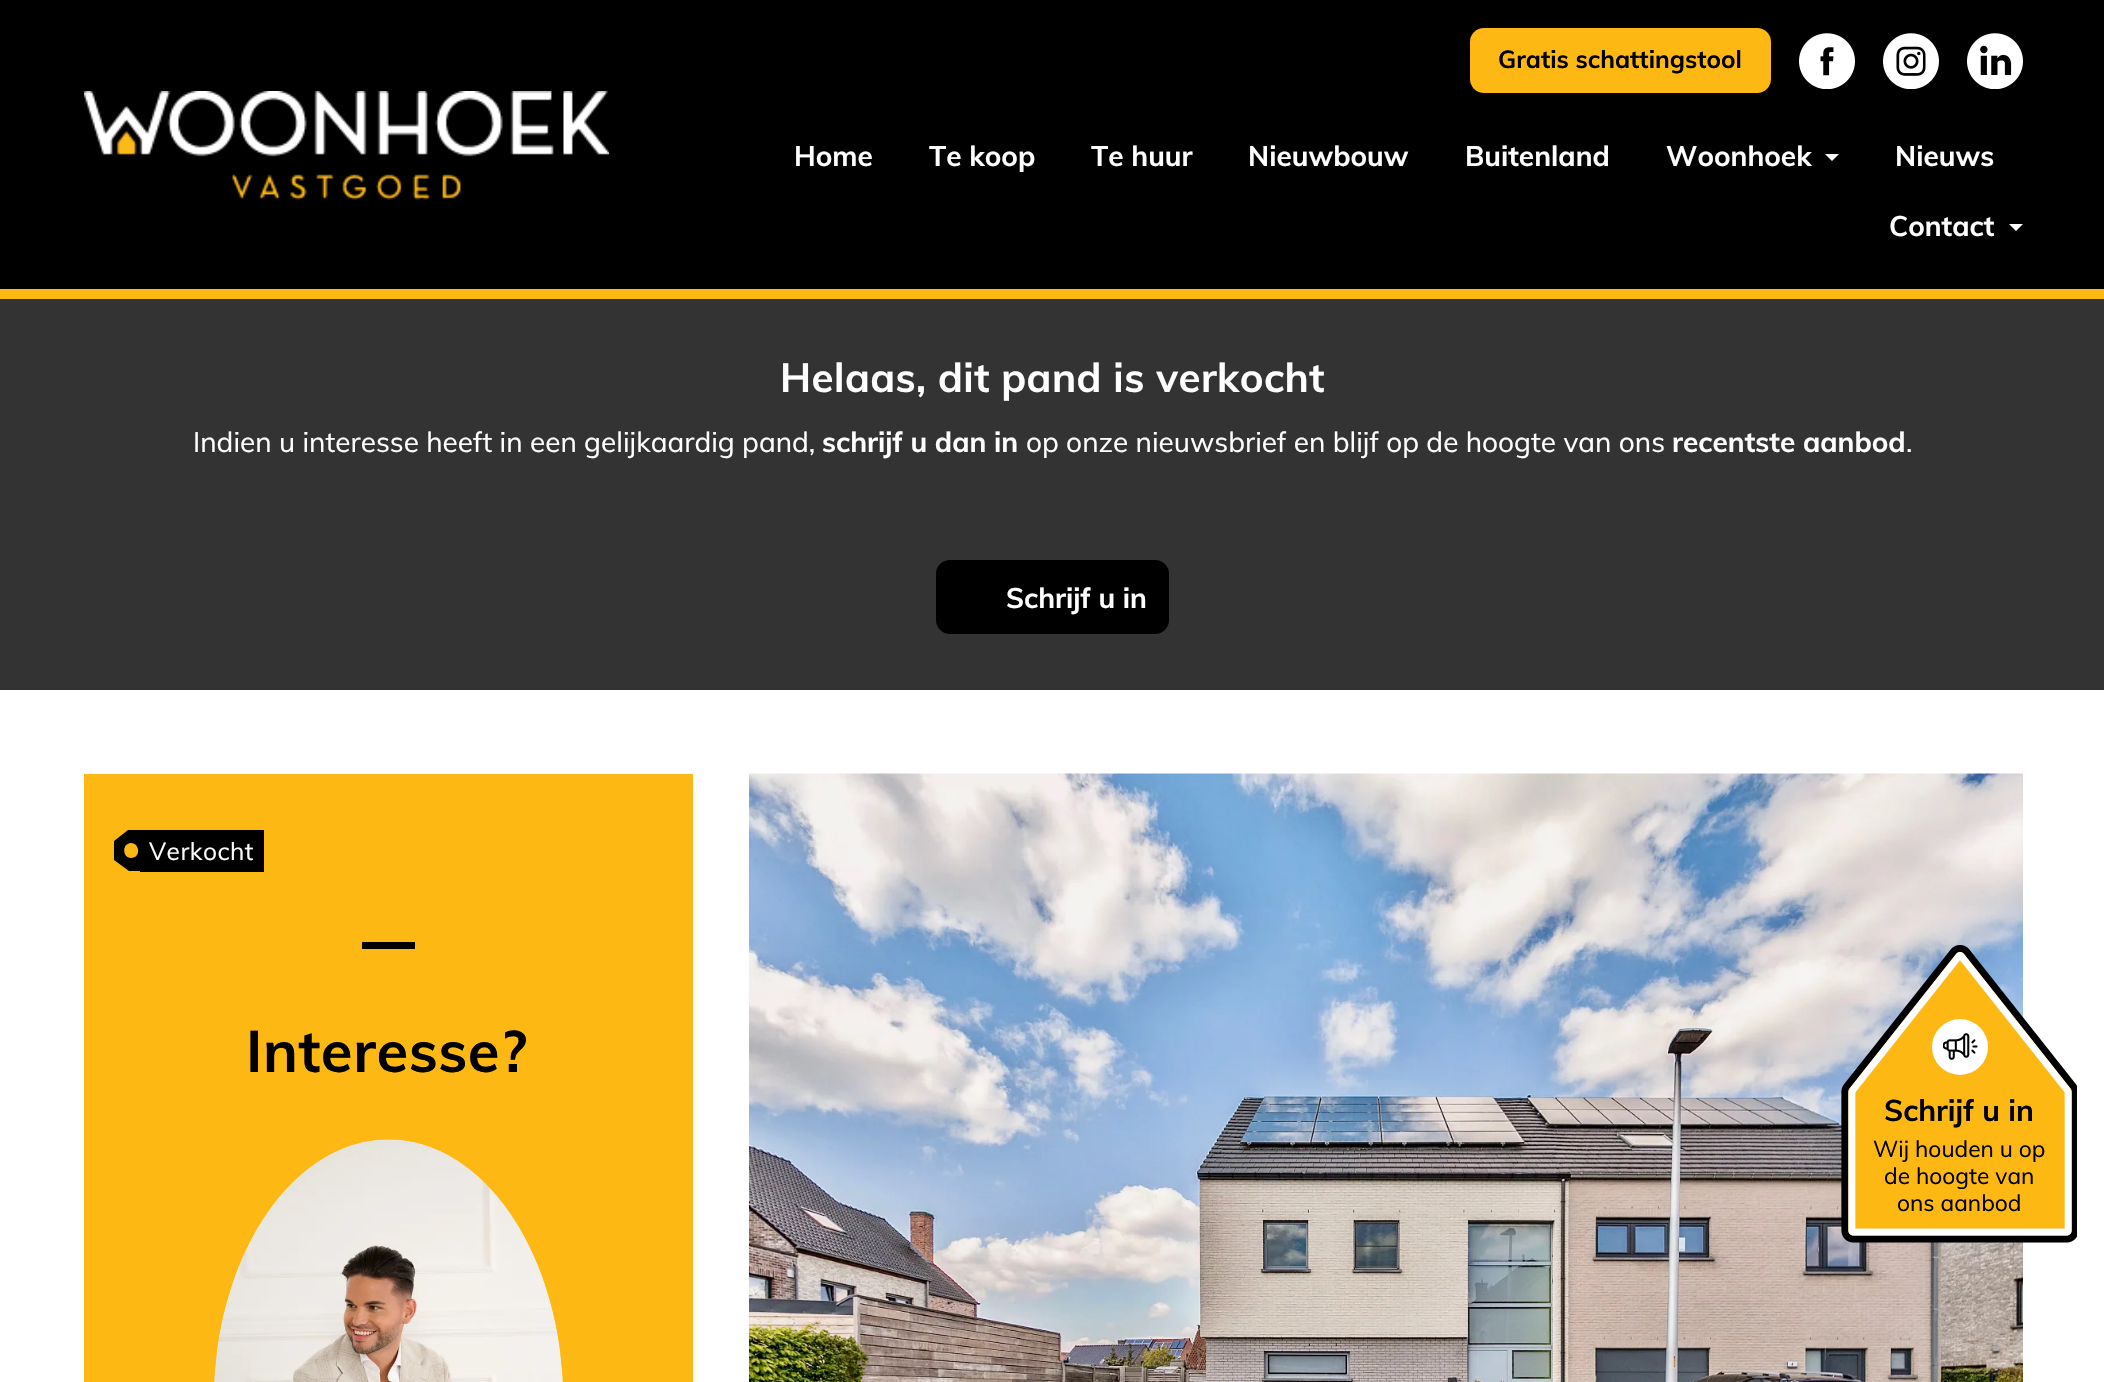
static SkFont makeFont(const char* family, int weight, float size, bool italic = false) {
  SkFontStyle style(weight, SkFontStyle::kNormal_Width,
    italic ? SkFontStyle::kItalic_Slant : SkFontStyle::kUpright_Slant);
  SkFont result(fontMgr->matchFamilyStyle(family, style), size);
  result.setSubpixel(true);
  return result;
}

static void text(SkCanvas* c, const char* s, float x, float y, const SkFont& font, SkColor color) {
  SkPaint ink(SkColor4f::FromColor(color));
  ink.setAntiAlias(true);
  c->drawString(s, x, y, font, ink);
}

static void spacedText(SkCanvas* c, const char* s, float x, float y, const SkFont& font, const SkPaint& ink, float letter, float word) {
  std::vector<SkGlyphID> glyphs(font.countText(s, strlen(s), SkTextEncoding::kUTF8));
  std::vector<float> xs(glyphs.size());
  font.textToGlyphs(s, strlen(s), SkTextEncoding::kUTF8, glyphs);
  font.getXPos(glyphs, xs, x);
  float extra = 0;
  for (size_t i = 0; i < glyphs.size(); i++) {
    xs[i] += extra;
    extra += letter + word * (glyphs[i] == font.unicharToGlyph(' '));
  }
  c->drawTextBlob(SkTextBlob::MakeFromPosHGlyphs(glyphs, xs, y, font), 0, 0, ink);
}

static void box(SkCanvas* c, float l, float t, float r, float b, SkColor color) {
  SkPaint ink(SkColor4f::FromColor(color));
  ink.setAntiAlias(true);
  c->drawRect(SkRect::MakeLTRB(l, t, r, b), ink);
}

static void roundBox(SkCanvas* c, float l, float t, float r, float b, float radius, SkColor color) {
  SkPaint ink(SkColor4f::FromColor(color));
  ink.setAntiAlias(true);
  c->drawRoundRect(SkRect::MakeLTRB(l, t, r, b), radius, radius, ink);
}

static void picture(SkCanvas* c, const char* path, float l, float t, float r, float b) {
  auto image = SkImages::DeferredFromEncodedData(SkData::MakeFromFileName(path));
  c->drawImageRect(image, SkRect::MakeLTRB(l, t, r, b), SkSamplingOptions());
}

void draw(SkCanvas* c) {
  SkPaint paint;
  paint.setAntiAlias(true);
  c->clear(0xffffffff);
  box(c, 0, 0, 2104, 289, 0xff000000);
  picture(c, "img_01.png", 84, 91, 609, 200);
  roundBox(c, 1470, 28, 1771, 93, 14, 0xfffdb813);
  SkFont face1 = makeFont("Muli", 700, 24.5f);
  text(c, "Gratis schattingstool", 1498, 68, face1, 0xff000000);
  picture(c, "img_02.png", 1799, 33, 1855, 89);
  picture(c, "img_03.png", 1883, 33, 1939, 89);
  picture(c, "img_04.png", 1967, 33, 2023, 89);
  SkFont face2 = makeFont("Muli", 700, 28);
  text(c, "Home", 794, 166, face2, 0xffffffff);
  text(c, "Te koop", 929, 166, face2, 0xffffffff);
  text(c, "Te huur", 1091, 166, face2, 0xffffffff);
  text(c, "Nieuwbouw", 1248, 166, face2, 0xffffffff);
  text(c, "Buitenland", 1465, 166, face2, 0xffffffff);
  text(c, "Woonhoek", 1666, 166, face2, 0xffffffff);
  paint.setColor(0xffffffff);
  c->drawPath(SkPathBuilder().moveTo(1825, 154).lineTo(1839, 154).lineTo(1832, 161).close().detach(), paint);
  text(c, "Nieuws", 1895, 166, face2, 0xffffffff);
  text(c, "Contact", 1889, 236, face2, 0xffffffff);
  c->drawPath(SkPathBuilder().moveTo(2009, 224).lineTo(2023, 224).lineTo(2016, 231).close().detach(), paint);
  box(c, 0, 289, 2104, 299, 0xfffdb813);
  box(c, 0, 299, 2104, 690, 0xff333333);
  SkFont face3 = makeFont("Muli", 700, 40.25f);
  spacedText(c, "Helaas, dit pand is verkocht", 780, 392, face3, paint, 0.4f, 0);
  SkFont face4 = makeFont("Muli", 400, 28);
  text(c, "Indien u interesse heeft in een gelijkaardig pand,", 193, 452, face4, 0xffffffff);
  text(c, "schrijf u dan in", 822, 452, face2, 0xffffffff);
  text(c, "op onze nieuwsbrief en blijf op de hoogte van ons", 1026, 452, face4, 0xffffffff);
  text(c, "recentste aanbod", 1672, 452, face2, 0xffffffff);
  text(c, ".", 1906, 452, face4, 0xffffffff);
  paint.setColor(0xff000000);
  c->drawRoundRect(SkRect::MakeLTRB(937, 561, 1168, 633), 13, 13, paint);
  paint.setStyle(SkPaint::kStroke_Style);
  paint.setStrokeWidth(2);
  c->drawRoundRect(SkRect::MakeLTRB(937, 561, 1168, 633), 13, 13, paint);
  text(c, "Schrijf u in", 1006, 608, face2, 0xffffffff);
  box(c, 84, 774, 693, 1382, 0xfffdb813);
  c->save();
  c->clipRect(SkRect::MakeLTRB(112, 830, 140, 872));
  paint.setStyle(SkPaint::kFill_Style);
  c->drawPath(SkPathBuilder(SkPathFillType::kEvenOdd).moveTo(114, 860).lineTo(114, 841).lineTo(128, 830).lineTo(443, 830).lineTo(443, 871).lineTo(129, 871).close().moveTo(131, 843).cubicTo(122, 843, 122, 858, 131, 858).cubicTo(141, 858, 140, 843, 131, 843).close().detach(), paint);
  c->restore();
  box(c, 140, 830, 264, 872, 0xff000000);
  SkFont face5 = makeFont("Muli", 400, 24.5f);
  paint.setColor(0xffffffff);
  spacedText(c, "Verkocht", 149, 860, face5, paint, 0.5f, 0);
  box(c, 362, 942, 415, 949, 0xff000000);
  SkFont face6 = makeFont("Muli", 700, 58);
  paint.setColor(0xff000000);
  spacedText(c, "Interesse?", 246, 1072, face6, paint, 0.5f, 0);
  picture(c, "img_05.png", 214, 1139, 563, 1382);
  picture(c, "img_06.png", 749, 773, 2023, 1382);
  picture(c, "img_07.png", 1841, 945, 2077, 1243);
  paint.setColor(0xffffffff);
  c->drawCircle(1960, 1047, 28, paint);
  picture(c, "img_08.png", 1943, 1033, 1978, 1060);
  SkFont face7 = makeFont("Muli", 700, 29.75f);
  text(c, "Schrijf u in", 1884, 1121, face7, 0xff000000);
  SkFont face8 = makeFont("Muli", 400, 22.75f);
  text(c, "Wij houden u op", 1873, 1157, face8, 0xff000000);
  text(c, "de hoogte van", 1884, 1184, face8, 0xff000000);
  text(c, "ons aanbod", 1897, 1211, face8, 0xff000000);
}
